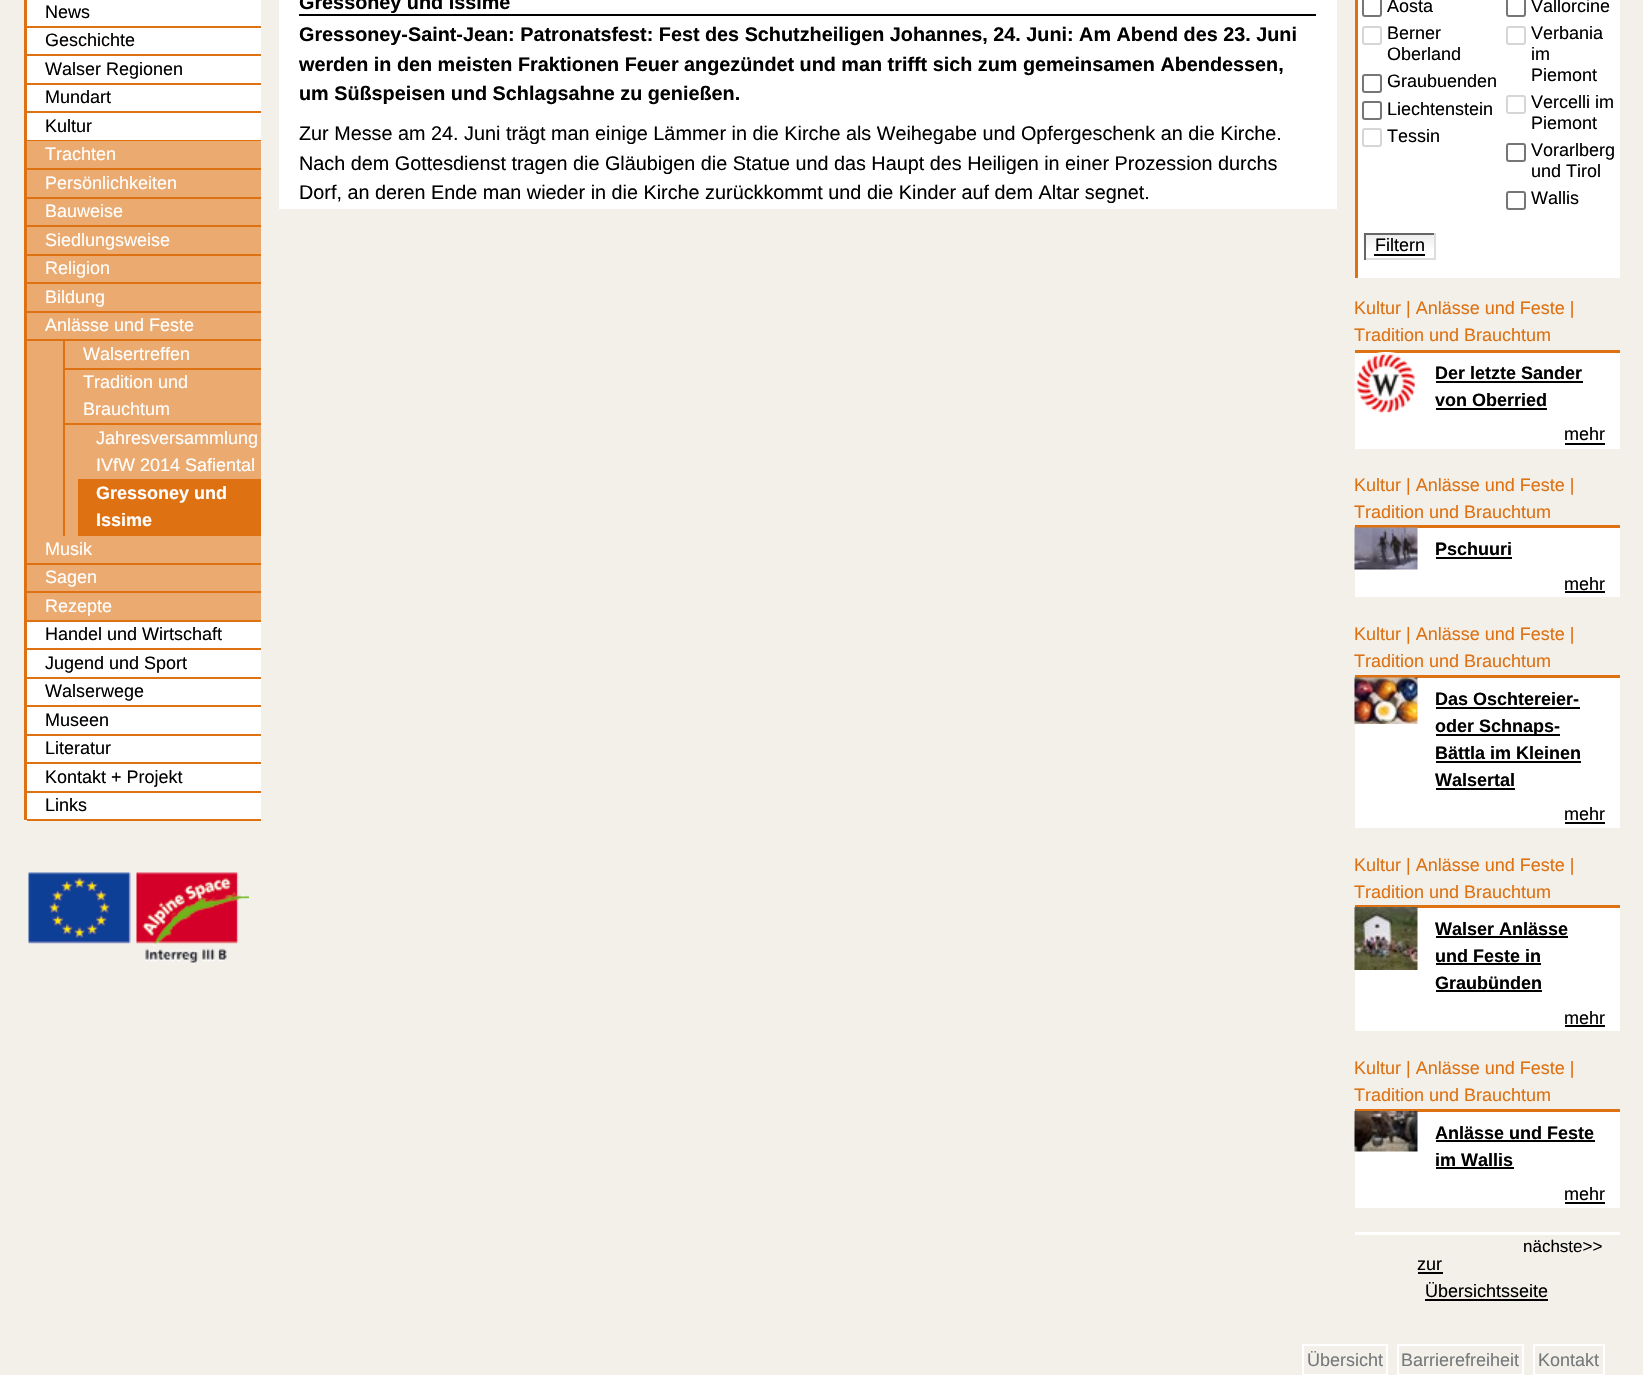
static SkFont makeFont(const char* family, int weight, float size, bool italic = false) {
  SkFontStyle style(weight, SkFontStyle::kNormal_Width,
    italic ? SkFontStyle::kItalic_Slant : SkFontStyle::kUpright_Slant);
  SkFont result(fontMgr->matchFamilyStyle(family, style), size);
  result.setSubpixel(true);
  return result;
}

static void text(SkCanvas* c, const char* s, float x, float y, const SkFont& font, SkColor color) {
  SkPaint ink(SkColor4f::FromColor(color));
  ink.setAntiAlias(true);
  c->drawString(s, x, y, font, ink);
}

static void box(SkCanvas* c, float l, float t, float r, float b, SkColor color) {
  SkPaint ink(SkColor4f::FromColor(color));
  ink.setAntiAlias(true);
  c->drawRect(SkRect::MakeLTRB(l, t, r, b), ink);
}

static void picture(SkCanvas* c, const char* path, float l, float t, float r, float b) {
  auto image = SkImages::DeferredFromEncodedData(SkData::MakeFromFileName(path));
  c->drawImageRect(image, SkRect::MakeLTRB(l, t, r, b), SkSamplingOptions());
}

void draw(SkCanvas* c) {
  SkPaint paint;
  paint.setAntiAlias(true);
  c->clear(0xfff2f0e9);
  box(c, 24, 0, 261, 821, 0xffffffff);
  paint.setColor(0xffde7112);
  c->drawPath(SkPathBuilder().moveTo(24, 820).lineTo(24, -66).lineTo(27, -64).lineTo(27, 820).close().detach(), paint);
  box(c, 27, 26, 261, 28, 0xffde7112);
  SkFont face1 = makeFont("Liberation Sans", 400, 18);
  text(c, "News", 45, 18, face1, 0xff000000);
  box(c, 27, 54, 261, 56, 0xffde7112);
  text(c, "Geschichte", 45, 46, face1, 0xff000000);
  box(c, 27, 83, 261, 85, 0xffde7112);
  text(c, "Walser Regionen", 45, 75, face1, 0xff000000);
  box(c, 27, 111, 261, 113, 0xffde7112);
  text(c, "Mundart", 45, 103, face1, 0xff000000);
  box(c, 27, 140, 261, 141, 0xffde7112);
  text(c, "Kultur", 45, 132, face1, 0xff000000);
  box(c, 27, 141, 261, 620, 0xffebaa70);
  box(c, 27, 168, 261, 170, 0xffde7112);
  text(c, "Trachten", 45, 160, face1, 0xffffffff);
  box(c, 27, 197, 261, 199, 0xffde7112);
  text(c, "Persönlichkeiten", 45, 189, face1, 0xffffffff);
  box(c, 27, 225, 261, 227, 0xffde7112);
  text(c, "Bauweise", 45, 217, face1, 0xffffffff);
  box(c, 27, 254, 261, 256, 0xffde7112);
  text(c, "Siedlungsweise", 45, 246, face1, 0xffffffff);
  box(c, 27, 282, 261, 284, 0xffde7112);
  text(c, "Religion", 45, 274, face1, 0xffffffff);
  box(c, 27, 311, 261, 313, 0xffde7112);
  text(c, "Bildung", 45, 303, face1, 0xffffffff);
  box(c, 27, 339, 261, 341, 0xffde7112);
  text(c, "Anlässe und Feste", 45, 331, face1, 0xffffffff);
  box(c, 63, 341, 65, 536, 0xffde7112);
  box(c, 65, 368, 261, 370, 0xffde7112);
  text(c, "Walsertreffen", 83, 360, face1, 0xffffffff);
  box(c, 65, 423, 261, 425, 0xffde7112);
  text(c, "Tradition und", 83, 388, face1, 0xffffffff);
  text(c, "Brauchtum", 83, 415, face1, 0xffffffff);
  box(c, 78, 479, 261, 536, 0xffde7112);
  text(c, "Jahresversammlung", 96, 444, face1, 0xffffffff);
  text(c, "IVfW 2014 Safiental", 96, 471, face1, 0xffffffff);
  SkFont face2 = makeFont("Liberation Sans", 700, 18);
  text(c, "Gressoney und", 96, 499, face2, 0xffffffff);
  text(c, "Issime", 96, 526, face2, 0xffffffff);
  box(c, 27, 563, 261, 565, 0xffde7112);
  text(c, "Musik", 45, 555, face1, 0xffffffff);
  box(c, 27, 591, 261, 593, 0xffde7112);
  text(c, "Sagen", 45, 583, face1, 0xffffffff);
  box(c, 27, 620, 261, 622, 0xffde7112);
  text(c, "Rezepte", 45, 612, face1, 0xffffffff);
  box(c, 27, 648, 261, 650, 0xffde7112);
  text(c, "Handel und Wirtschaft", 45, 640, face1, 0xff000000);
  box(c, 27, 677, 261, 679, 0xffde7112);
  text(c, "Jugend und Sport", 45, 669, face1, 0xff000000);
  box(c, 27, 705, 261, 707, 0xffde7112);
  text(c, "Walserwege", 45, 697, face1, 0xff000000);
  box(c, 27, 734, 261, 736, 0xffde7112);
  text(c, "Museen", 45, 726, face1, 0xff000000);
  box(c, 27, 762, 261, 764, 0xffde7112);
  text(c, "Literatur", 45, 754, face1, 0xff000000);
  box(c, 27, 791, 261, 793, 0xffde7112);
  text(c, "Kontakt + Projekt", 45, 783, face1, 0xff000000);
  box(c, 27, 819, 261, 821, 0xffde7112);
  text(c, "Links", 45, 811, face1, 0xff000000);
  picture(c, "img_01.png", 28, 872, 131, 944);
  picture(c, "img_02.png", 136, 872, 249, 964);
  box(c, 279, 0, 1337, 209, 0xffffffff);
  box(c, 299, 14, 1316, 16, 0xff000000);
  SkFont face3 = makeFont("Liberation Sans", 700, 19.8f);
  text(c, "Gressoney und Issime", 299, 9, face3, 0xff000000);
  text(c, "Gressoney-Saint-Jean: Patronatsfest: Fest des Schutzheiligen Johannes, 24. Juni: Am Abend des 23. Juni", 299, 41, face3, 0xff000000);
  text(c, "werden in den meisten Fraktionen Feuer angezündet und man trifft sich zum gemeinsamen Abendessen,", 299, 71, face3, 0xff000000);
  text(c, "um Süßspeisen und Schlagsahne zu genießen.", 299, 100, face3, 0xff000000);
  SkFont face4 = makeFont("Liberation Sans", 400, 19.8f);
  text(c, "Zur Messe am 24. Juni trägt man einige Lämmer in die Kirche als Weihegabe und Opfergeschenk an die Kirche.", 299, 140, face4, 0xff000000);
  text(c, "Nach dem Gottesdienst tragen die Gläubigen die Statue und das Haupt des Heiligen in einer Prozession durchs", 299, 170, face4, 0xff000000);
  text(c, "Dorf, an deren Ende man wieder in die Kirche zurückkommt und die Kinder auf dem Altar segnet.", 299, 199, face4, 0xff000000);
  box(c, 1358, 0, 1620, 278, 0xffffffff);
  box(c, 1355, 0, 1358, 278, 0xffde7112);
  paint.setStyle(SkPaint::kStroke_Style);
  paint.setStrokeWidth(2);
  paint.setColor(0xff767676);
  c->drawRoundRect(SkRect::MakeLTRB(1363, -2, 1381, 16), 2, 2, paint);
  text(c, "Aosta", 1387, 12, face1, 0xff000000);
  paint.setColor(0xffd6d6d6);
  c->drawRoundRect(SkRect::MakeLTRB(1363, 27, 1381, 44), 2, 2, paint);
  text(c, "Berner", 1387, 39, face1, 0xff000000);
  text(c, "Oberland", 1387, 60, face1, 0xff000000);
  paint.setColor(0xff767676);
  c->drawRoundRect(SkRect::MakeLTRB(1363, 75, 1381, 92), 2, 2, paint);
  text(c, "Graubuenden", 1387, 87, face1, 0xff000000);
  c->drawRoundRect(SkRect::MakeLTRB(1363, 102, 1381, 119), 2, 2, paint);
  text(c, "Liechtenstein", 1387, 115, face1, 0xff000000);
  paint.setColor(0xffd6d6d6);
  c->drawRoundRect(SkRect::MakeLTRB(1363, 129, 1381, 146), 2, 2, paint);
  text(c, "Tessin", 1387, 142, face1, 0xff000000);
  paint.setColor(0xff767676);
  c->drawRoundRect(SkRect::MakeLTRB(1507, -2, 1525, 16), 2, 2, paint);
  text(c, "Vallorcine", 1531, 12, face1, 0xff000000);
  paint.setColor(0xffd6d6d6);
  c->drawRoundRect(SkRect::MakeLTRB(1507, 27, 1525, 44), 2, 2, paint);
  text(c, "Verbania", 1531, 39, face1, 0xff000000);
  text(c, "im", 1531, 60, face1, 0xff000000);
  text(c, "Piemont", 1531, 81, face1, 0xff000000);
  c->drawRoundRect(SkRect::MakeLTRB(1507, 96, 1525, 113), 2, 2, paint);
  text(c, "Vercelli im", 1531, 108, face1, 0xff000000);
  text(c, "Piemont", 1531, 129, face1, 0xff000000);
  paint.setColor(0xff767676);
  c->drawRoundRect(SkRect::MakeLTRB(1507, 144, 1525, 161), 2, 2, paint);
  text(c, "Vorarlberg", 1531, 156, face1, 0xff000000);
  text(c, "und Tirol", 1531, 177, face1, 0xff000000);
  c->drawRoundRect(SkRect::MakeLTRB(1507, 192, 1525, 209), 2, 2, paint);
  text(c, "Wallis", 1531, 204, face1, 0xff000000);
  picture(c, "img_03.png", 1363, 233, 1434, 248);
  box(c, 1364, 233, 1436, 235, 0xff666666);
  box(c, 1434, 233, 1436, 260, 0xffdddddd);
  box(c, 1364, 258, 1436, 260, 0xffdddddd);
  box(c, 1364, 233, 1366, 260, 0xff666666);
  text(c, "Filtern", 1375, 251, face1, 0xff000000);
  box(c, 1374, 254, 1425, 256, 0xff000000);
  box(c, 1355, 350, 1620, 353, 0xffde7112);
  text(c, "Kultur | Anlässe und Feste |", 1354, 314, face1, 0xffde7112);
  text(c, "Tradition und Brauchtum", 1354, 341, face1, 0xffde7112);
  box(c, 1355, 353, 1620, 449, 0xffffffff);
  picture(c, "img_04.png", 1354, 352, 1416, 413);
  text(c, "Der letzte Sander", 1435, 379, face2, 0xff000000);
  box(c, 1436, 381, 1583, 383, 0xff000000);
  text(c, "von Oberried", 1435, 406, face2, 0xff000000);
  box(c, 1436, 408, 1547, 410, 0xff000000);
  text(c, "mehr", 1564, 440, face1, 0xff000000);
  box(c, 1565, 443, 1605, 445, 0xff000000);
  box(c, 1355, 525, 1620, 528, 0xffde7112);
  text(c, "Kultur | Anlässe und Feste |", 1354, 491, face1, 0xffde7112);
  text(c, "Tradition und Brauchtum", 1354, 518, face1, 0xffde7112);
  box(c, 1355, 528, 1620, 597, 0xffffffff);
  picture(c, "img_05.png", 1354, 527, 1418, 570);
  text(c, "Pschuuri", 1435, 555, face2, 0xff000000);
  box(c, 1436, 557, 1512, 559, 0xff000000);
  text(c, "mehr", 1564, 590, face1, 0xff000000);
  box(c, 1565, 591, 1605, 593, 0xff000000);
  box(c, 1355, 675, 1620, 678, 0xffde7112);
  text(c, "Kultur | Anlässe und Feste |", 1354, 640, face1, 0xffde7112);
  text(c, "Tradition und Brauchtum", 1354, 667, face1, 0xffde7112);
  box(c, 1355, 678, 1620, 828, 0xffffffff);
  picture(c, "img_06.png", 1354, 677, 1418, 724);
  text(c, "Das Oschtereier-", 1435, 705, face2, 0xff000000);
  box(c, 1436, 707, 1580, 709, 0xff000000);
  box(c, 1436, 734, 1560, 736, 0xff000000);
  text(c, "oder Schnaps-", 1435, 732, face2, 0xff000000);
  text(c, "Bättla im Kleinen", 1435, 759, face2, 0xff000000);
  box(c, 1436, 761, 1581, 763, 0xff000000);
  text(c, "Walsertal", 1435, 786, face2, 0xff000000);
  box(c, 1436, 788, 1515, 790, 0xff000000);
  text(c, "mehr", 1564, 820, face1, 0xff000000);
  box(c, 1565, 822, 1605, 824, 0xff000000);
  box(c, 1355, 905, 1620, 908, 0xffde7112);
  text(c, "Kultur | Anlässe und Feste |", 1354, 871, face1, 0xffde7112);
  text(c, "Tradition und Brauchtum", 1354, 898, face1, 0xffde7112);
  box(c, 1355, 908, 1620, 1031, 0xffffffff);
  picture(c, "img_07.png", 1354, 907, 1418, 970);
  text(c, "Walser Anlässe", 1435, 935, face2, 0xff000000);
  box(c, 1436, 936, 1568, 938, 0xff000000);
  text(c, "und Feste in", 1435, 962, face2, 0xff000000);
  box(c, 1436, 963, 1541, 965, 0xff000000);
  text(c, "Graubünden", 1435, 989, face2, 0xff000000);
  box(c, 1436, 990, 1542, 992, 0xff000000);
  text(c, "mehr", 1564, 1024, face1, 0xff000000);
  box(c, 1565, 1025, 1605, 1027, 0xff000000);
  box(c, 1355, 1109, 1620, 1112, 0xffde7112);
  text(c, "Kultur | Anlässe und Feste |", 1354, 1074, face1, 0xffde7112);
  text(c, "Tradition und Brauchtum", 1354, 1101, face1, 0xffde7112);
  box(c, 1355, 1112, 1620, 1208, 0xffffffff);
  picture(c, "img_08.png", 1354, 1111, 1418, 1152);
  text(c, "Anlässe und Feste", 1435, 1139, face2, 0xff000000);
  box(c, 1436, 1140, 1595, 1142, 0xff000000);
  text(c, "im Wallis", 1435, 1166, face2, 0xff000000);
  box(c, 1436, 1167, 1514, 1169, 0xff000000);
  text(c, "mehr", 1564, 1200, face1, 0xff000000);
  box(c, 1565, 1202, 1605, 1204, 0xff000000);
  box(c, 1355, 1232, 1620, 1235, 0xffffffff);
  SkFont face5 = makeFont("Liberation Sans", 400, 17);
  text(c, "nächste>>", 1523, 1252, face5, 0xff000000);
  text(c, "zur", 1417, 1270, face1, 0xff000000);
  box(c, 1418, 1272, 1443, 1274, 0xff000000);
  text(c, "Übersichtsseite", 1425, 1297, face1, 0xff000000);
  box(c, 1425, 1299, 1548, 1301, 0xff000000);
  paint.setColor(0xffffffff);
  c->drawRect(SkRect::MakeLTRB(1303, 1345, 1387, 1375), paint);
  text(c, "Übersicht", 1307, 1366, face1, 0xff76797c);
  c->drawRect(SkRect::MakeLTRB(1398, 1345, 1523, 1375), paint);
  text(c, "Barrierefreiheit", 1401, 1366, face1, 0xff76797c);
  c->drawRect(SkRect::MakeLTRB(1534, 1345, 1604, 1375), paint);
  text(c, "Kontakt", 1538, 1366, face1, 0xff76797c);
}
